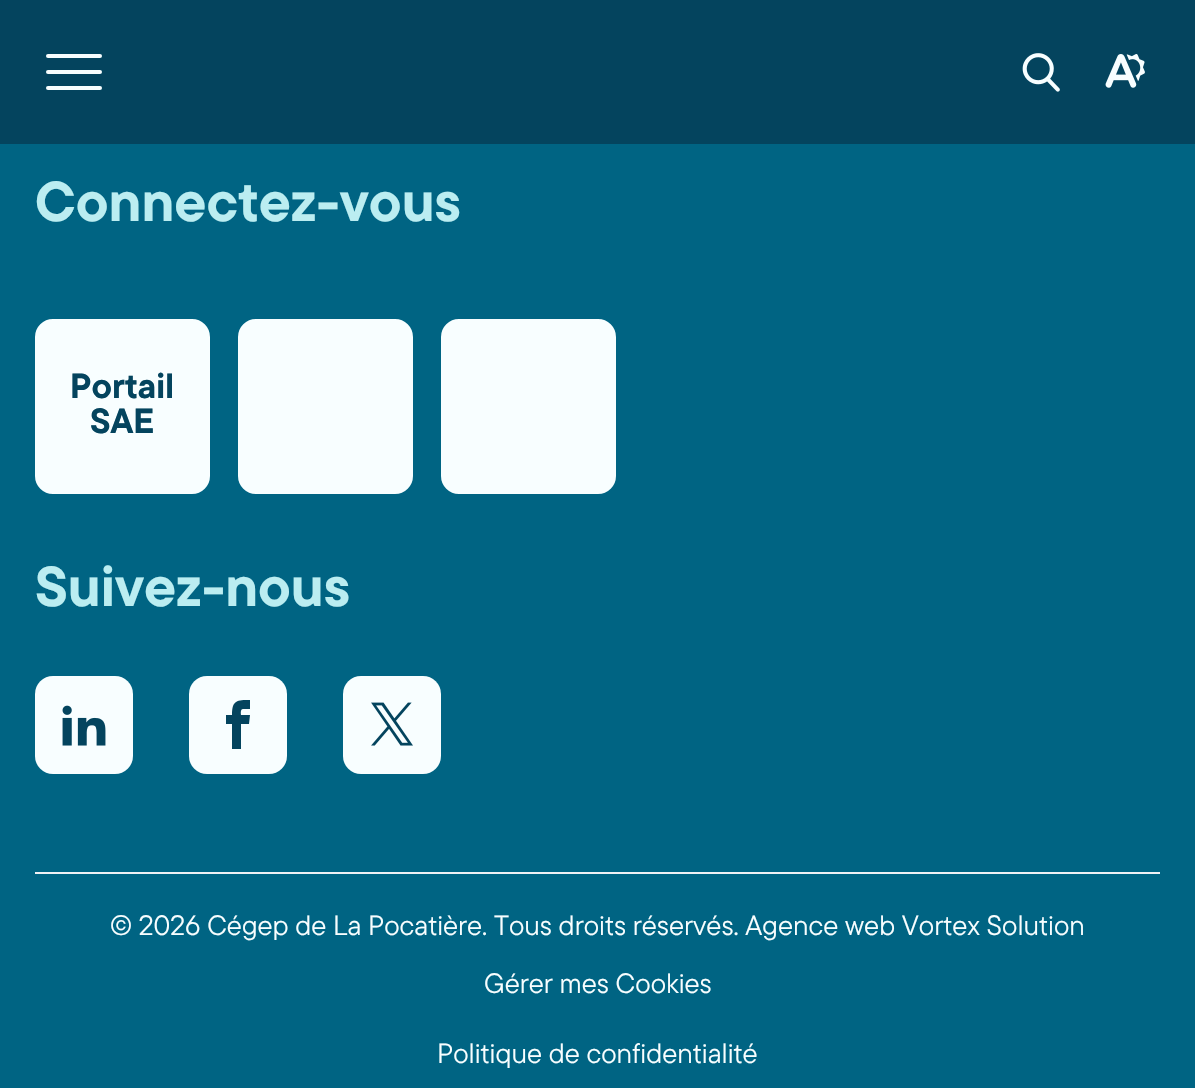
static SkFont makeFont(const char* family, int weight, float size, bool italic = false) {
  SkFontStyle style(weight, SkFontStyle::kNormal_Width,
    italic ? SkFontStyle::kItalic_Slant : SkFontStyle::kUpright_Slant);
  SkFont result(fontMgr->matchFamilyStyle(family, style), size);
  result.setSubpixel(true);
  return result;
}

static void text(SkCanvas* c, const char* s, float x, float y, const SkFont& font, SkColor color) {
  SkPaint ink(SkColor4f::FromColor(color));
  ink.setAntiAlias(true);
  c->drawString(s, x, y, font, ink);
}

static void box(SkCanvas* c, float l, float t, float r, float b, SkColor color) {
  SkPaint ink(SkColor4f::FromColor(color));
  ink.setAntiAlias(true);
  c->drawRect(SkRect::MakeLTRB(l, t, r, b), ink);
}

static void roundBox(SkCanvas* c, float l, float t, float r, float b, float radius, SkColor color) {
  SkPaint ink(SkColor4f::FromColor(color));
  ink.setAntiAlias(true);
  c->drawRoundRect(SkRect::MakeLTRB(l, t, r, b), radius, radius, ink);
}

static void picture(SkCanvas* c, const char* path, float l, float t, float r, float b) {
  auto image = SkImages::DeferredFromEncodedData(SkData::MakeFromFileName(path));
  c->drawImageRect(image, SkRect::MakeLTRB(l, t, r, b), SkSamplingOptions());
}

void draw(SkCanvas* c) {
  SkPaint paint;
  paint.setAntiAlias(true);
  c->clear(0xff006483);
  box(c, 0, 0, 1195, 144, 0xff04445e);
  roundBox(c, 46, 70, 102, 74, 2, 0xfff8feff);
  roundBox(c, 46, 54, 102, 58, 2, 0xfff8feff);
  roundBox(c, 46, 86, 102, 90, 2, 0xfff8feff);
  picture(c, "img_01.png", 1022, 53, 1060, 92);
  picture(c, "img_02.png", 1105, 54, 1145, 88);
  SkFont face1 = makeFont("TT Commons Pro", 700, 56);
  text(c, "Connectez-vous", 35, 221, face1, 0xffbbedf1);
  paint.setColor(0xfff8feff);
  c->drawRoundRect(SkRect::MakeLTRB(38.5f, 322.5f, 206.5f, 490.5f), 14.5f, 14.5f, paint);
  paint.setStyle(SkPaint::kStroke_Style);
  paint.setStrokeWidth(7);
  c->drawRoundRect(SkRect::MakeLTRB(38.5f, 322.5f, 206.5f, 490.5f), 14.5f, 14.5f, paint);
  SkFont face2 = makeFont("TT Commons Pro", 700, 35);
  text(c, "Portail", 70, 398, face2, 0xff04445e);
  text(c, "SAE", 90, 433, face2, 0xff04445e);
  paint.setStyle(SkPaint::kFill_Style);
  c->drawRoundRect(SkRect::MakeLTRB(241.5f, 322.5f, 409.5f, 490.5f), 14.5f, 14.5f, paint);
  paint.setStyle(SkPaint::kStroke_Style);
  c->drawRoundRect(SkRect::MakeLTRB(241.5f, 322.5f, 409.5f, 490.5f), 14.5f, 14.5f, paint);
  paint.setStyle(SkPaint::kFill_Style);
  c->drawRoundRect(SkRect::MakeLTRB(444.5f, 322.5f, 612.5f, 490.5f), 14.5f, 14.5f, paint);
  paint.setStyle(SkPaint::kStroke_Style);
  c->drawRoundRect(SkRect::MakeLTRB(444.5f, 322.5f, 612.5f, 490.5f), 14.5f, 14.5f, paint);
  text(c, "Suivez-nous", 35, 606, face1, 0xffbbedf1);
  roundBox(c, 35, 676, 133, 774, 18, 0xfff8feff);
  picture(c, "img_03.png", 62, 705, 106, 746);
  roundBox(c, 189, 676, 287, 774, 18, 0xfff8feff);
  paint.setStyle(SkPaint::kFill_Style);
  paint.setColor(0xff04445e);
  c->drawPath(SkPathBuilder().moveTo(243, 709).lineTo(250, 709).lineTo(250, 700).cubicTo(237, 700, 232, 700, 232, 715).lineTo(226, 715).lineTo(226, 724).lineTo(232, 724).lineTo(232, 749).lineTo(241, 749).lineTo(241, 724).lineTo(249, 724).lineTo(250, 715).lineTo(241, 715).cubicTo(241, 714, 240, 709, 243, 709).close().detach(), paint);
  roundBox(c, 343, 676, 441, 774, 18, 0xfff8feff);
  picture(c, "img_04.png", 371, 702, 413, 746);
  box(c, 35, 872, 1160, 874, 0xffeff1f5);
  SkFont face3 = makeFont("TT Commons Pro", 400, 28);
  text(c, "© 2026 Cégep de La Pocatière. Tous droits réservés. Agence web Vortex Solution", 110, 935, face3, 0xfff8feff);
  text(c, "Gérer mes Cookies", 484, 993, face3, 0xfff8feff);
  text(c, "Politique de confidentialité", 437, 1063, face3, 0xfff8feff);
}
